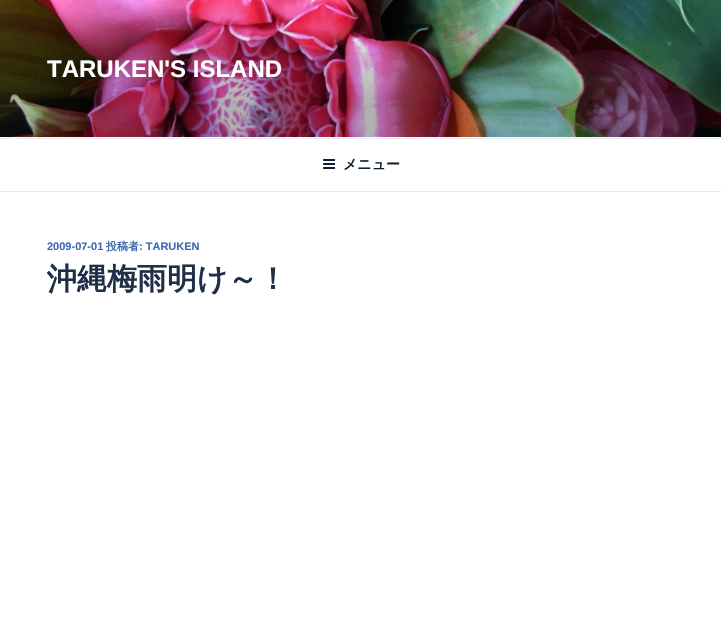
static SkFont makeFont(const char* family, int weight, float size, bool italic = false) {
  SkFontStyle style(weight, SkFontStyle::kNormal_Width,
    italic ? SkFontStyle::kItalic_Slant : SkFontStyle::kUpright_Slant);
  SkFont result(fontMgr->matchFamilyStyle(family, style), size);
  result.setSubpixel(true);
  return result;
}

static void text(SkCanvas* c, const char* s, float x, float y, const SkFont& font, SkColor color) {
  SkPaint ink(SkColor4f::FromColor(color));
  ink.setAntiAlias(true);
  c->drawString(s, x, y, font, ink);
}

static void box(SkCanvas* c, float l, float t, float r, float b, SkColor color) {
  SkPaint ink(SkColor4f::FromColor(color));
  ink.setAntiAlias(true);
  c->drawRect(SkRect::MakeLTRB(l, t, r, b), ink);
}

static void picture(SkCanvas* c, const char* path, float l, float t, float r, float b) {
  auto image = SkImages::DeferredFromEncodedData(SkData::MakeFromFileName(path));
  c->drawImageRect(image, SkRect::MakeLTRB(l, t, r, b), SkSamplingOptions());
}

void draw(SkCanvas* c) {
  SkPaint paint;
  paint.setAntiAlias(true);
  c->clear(0xffffffff);
  box(c, 0, 137, 721, 138, 0xfff7f9fc);
  picture(c, "img_01.png", 0, 0, 721, 137);
  SkFont face1 = makeFont("Liberation Sans", 700, 24);
  text(c, "TARUKEN'S ISLAND", 47, 77, face1, 0xffffffff);
  box(c, 0, 138, 721, 139, 0xffe4ebf6);
  box(c, 0, 191, 721, 192, 0xffe4ebf6);
  picture(c, "img_02.png", 323, 159, 336, 169);
  SkFont face2 = makeFont("WenQuanYi Zen Hei", 700, 14);
  text(c, "メニュー", 343, 169, face2, 0xff111e32);
  SkFont face3 = makeFont("Liberation Sans", 700, 11);
  text(c, "2009-07-01", 47, 250, face3, 0xff3b6ab0);
  SkFont face4 = makeFont("WenQuanYi Zen Hei", 700, 11);
  text(c, "投稿者", 106, 250, face4, 0xff3b6ab0);
  text(c, ": TARUKEN", 139, 250, face3, 0xff3b6ab0);
  SkFont face5 = makeFont("WenQuanYi Zen Hei", 700, 30);
  text(c, "沖縄梅雨明け～！", 47, 289, face5, 0xff1f2f47);
}
